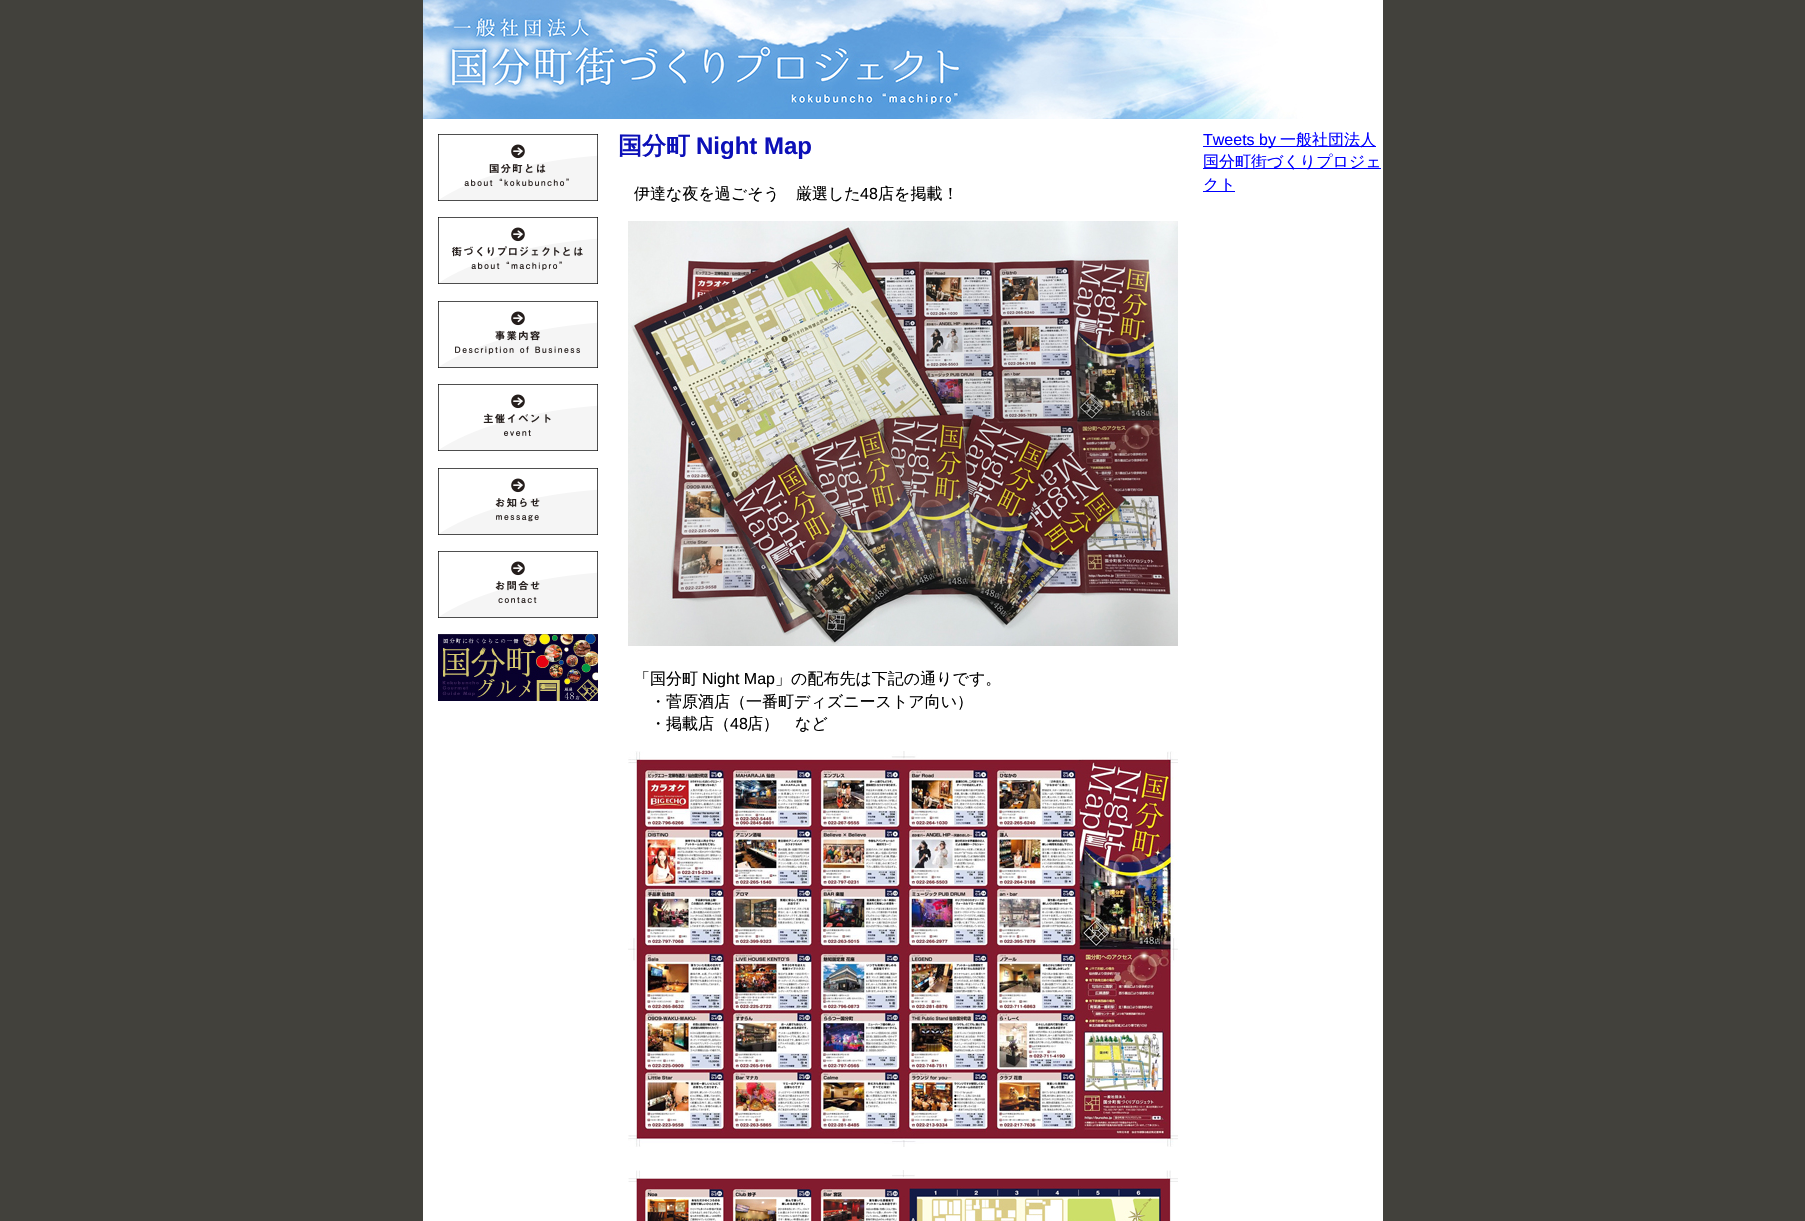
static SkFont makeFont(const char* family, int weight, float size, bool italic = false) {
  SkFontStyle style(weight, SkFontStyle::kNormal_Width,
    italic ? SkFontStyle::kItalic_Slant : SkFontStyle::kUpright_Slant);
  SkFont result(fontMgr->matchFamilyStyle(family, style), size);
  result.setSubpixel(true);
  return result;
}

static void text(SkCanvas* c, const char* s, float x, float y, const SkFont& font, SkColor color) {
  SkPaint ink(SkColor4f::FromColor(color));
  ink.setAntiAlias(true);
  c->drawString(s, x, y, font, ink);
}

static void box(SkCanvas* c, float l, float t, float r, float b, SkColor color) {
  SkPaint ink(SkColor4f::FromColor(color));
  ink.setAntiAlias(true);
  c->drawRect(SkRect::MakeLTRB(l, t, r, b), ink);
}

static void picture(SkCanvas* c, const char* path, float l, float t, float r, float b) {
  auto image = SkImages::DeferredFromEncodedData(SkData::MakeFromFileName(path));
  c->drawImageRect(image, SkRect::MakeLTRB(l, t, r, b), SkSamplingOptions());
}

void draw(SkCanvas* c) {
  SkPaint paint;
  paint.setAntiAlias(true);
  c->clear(0xff42413c);
  box(c, 423, 119, 1383, 1221, 0xffffffff);
  picture(c, "img_01.png", 423, 0, 1383, 119);
  picture(c, "img_02.png", 438, 134, 598, 201);
  picture(c, "img_03.png", 438, 217, 598, 284);
  picture(c, "img_04.png", 438, 301, 598, 368);
  picture(c, "img_05.png", 438, 384, 598, 451);
  picture(c, "img_06.png", 438, 468, 598, 535);
  picture(c, "img_07.png", 438, 551, 598, 618);
  picture(c, "img_08.png", 438, 634, 598, 701);
  SkFont face1 = makeFont("WenQuanYi Zen Hei", 700, 24);
  text(c, "国分町", 618, 154, face1, 0xff0c10b8);
  SkFont face2 = makeFont("Liberation Sans", 700, 24);
  text(c, "Night Map", 696, 154, face2, 0xff0c10b8);
  SkFont face3 = makeFont("WenQuanYi Zen Hei", 500, 16);
  text(c, "伊達な夜を過ごそう　厳選した", 634, 199, face3, 0xff000000);
  SkFont face4 = makeFont("Liberation Sans", 400, 16);
  text(c, "48", 860, 199, face4, 0xff000000);
  text(c, "店を掲載！", 878, 199, face3, 0xff000000);
  picture(c, "img_09.png", 628, 221, 1178, 646);
  text(c, "「国分町", 634, 684, face3, 0xff000000);
  text(c, "Night Map", 702, 684, face4, 0xff000000);
  text(c, "」の配布先は下記の通りです。", 775, 684, face3, 0xff000000);
  text(c, "・菅原酒店（一番町ディズニーストア向い）", 650, 707, face3, 0xff000000);
  text(c, "・掲載店（", 650, 729, face3, 0xff000000);
  text(c, "48", 730, 729, face4, 0xff000000);
  text(c, "店）　など", 747, 729, face3, 0xff000000);
  picture(c, "img_10.png", 628, 751, 1178, 1147);
  picture(c, "img_11.png", 628, 1170, 1178, 1221);
  box(c, 1203, 146, 1376, 147, 0xff0000ff);
  text(c, "Tweets by", 1203, 145, face4, 0xff0000ff);
  text(c, "一般社団法人", 1280, 145, face3, 0xff0000ff);
  box(c, 1203, 168, 1381, 169, 0xff0000ff);
  text(c, "国分町街づくりプロジェ", 1203, 167, face3, 0xff0000ff);
  box(c, 1203, 191, 1235, 192, 0xff0000ff);
  text(c, "クト", 1203, 190, face3, 0xff0000ff);
}
